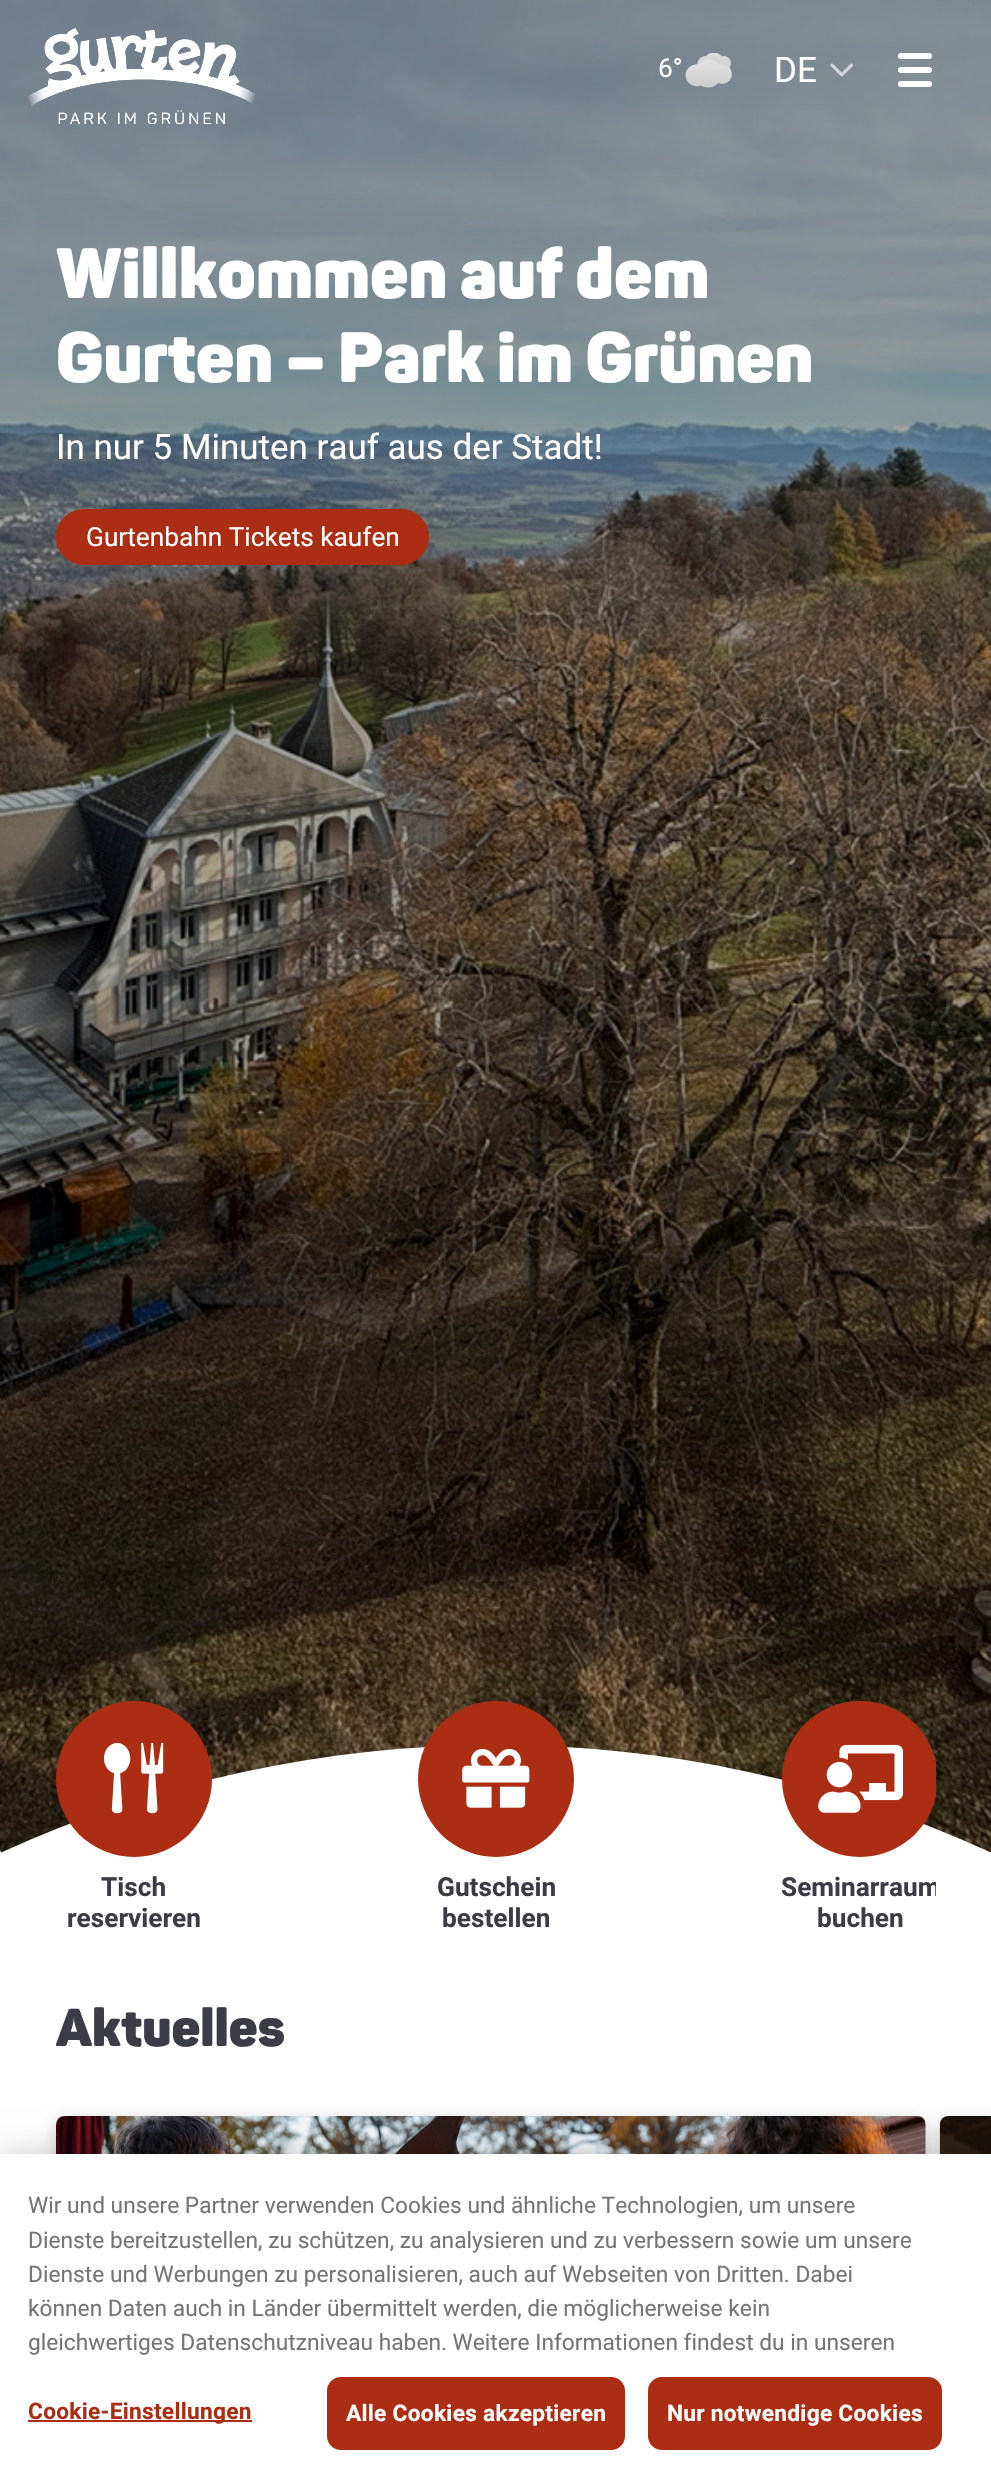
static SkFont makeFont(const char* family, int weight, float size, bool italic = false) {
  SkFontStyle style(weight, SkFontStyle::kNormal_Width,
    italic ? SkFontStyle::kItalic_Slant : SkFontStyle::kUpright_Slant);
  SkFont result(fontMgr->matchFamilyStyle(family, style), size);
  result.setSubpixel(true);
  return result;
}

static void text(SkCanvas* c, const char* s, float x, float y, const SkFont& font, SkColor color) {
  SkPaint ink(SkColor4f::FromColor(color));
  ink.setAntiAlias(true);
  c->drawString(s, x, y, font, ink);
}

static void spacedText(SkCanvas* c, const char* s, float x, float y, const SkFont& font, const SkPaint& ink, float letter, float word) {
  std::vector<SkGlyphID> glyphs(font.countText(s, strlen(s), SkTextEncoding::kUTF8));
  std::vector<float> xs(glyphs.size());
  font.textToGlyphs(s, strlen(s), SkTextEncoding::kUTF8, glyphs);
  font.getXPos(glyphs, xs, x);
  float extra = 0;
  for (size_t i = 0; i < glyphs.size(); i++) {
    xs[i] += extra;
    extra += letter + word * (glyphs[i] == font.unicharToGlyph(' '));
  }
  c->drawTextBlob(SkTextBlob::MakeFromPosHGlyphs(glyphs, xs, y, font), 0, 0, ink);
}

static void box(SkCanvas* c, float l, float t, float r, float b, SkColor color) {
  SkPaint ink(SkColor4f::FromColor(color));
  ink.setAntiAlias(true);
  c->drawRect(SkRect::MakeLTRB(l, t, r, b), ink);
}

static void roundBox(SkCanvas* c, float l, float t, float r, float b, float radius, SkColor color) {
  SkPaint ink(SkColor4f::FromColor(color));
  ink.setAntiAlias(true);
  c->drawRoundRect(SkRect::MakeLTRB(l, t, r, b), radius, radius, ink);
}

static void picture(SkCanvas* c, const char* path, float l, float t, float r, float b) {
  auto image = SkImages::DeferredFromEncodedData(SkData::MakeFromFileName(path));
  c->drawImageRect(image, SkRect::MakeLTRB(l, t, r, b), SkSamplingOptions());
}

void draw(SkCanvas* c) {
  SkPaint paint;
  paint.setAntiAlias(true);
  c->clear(0xffffffff);
  paint.setColor(0xff000000);
  c->drawPath(SkPathBuilder().moveTo(0, 0).lineTo(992, 0).lineTo(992, 1848).cubicTo(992, 1853, 988, 1857, 983, 1857).lineTo(9, 1857).cubicTo(4, 1857, 0, 1853, 0, 1848).close().detach(), paint);
  picture(c, "img_05.png", 0, 0, 991, 1853);
  picture(c, "img_01.png", 28, 28, 255, 124);
  picture(c, "img_02.png", 28, 28, 255, 124);
  SkFont face1 = makeFont("Roboto", 400, 26.25f);
  text(c, "6°", 658, 77, face1, 0xffffffff);
  picture(c, "img_03.png", 685, 53, 732, 88);
  SkFont face2 = makeFont("Roboto", 400, 35);
  text(c, "DE", 774, 82, face2, 0xffffffff);
  picture(c, "img_04.png", 830, 63, 853, 77);
  roundBox(c, 898, 53, 932, 59, 3, 0xffffffff);
  roundBox(c, 898, 67, 932, 73, 3, 0xffffffff);
  roundBox(c, 898, 81, 932, 87, 3, 0xffffffff);
  SkFont face3 = makeFont("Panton", 900, 70);
  text(c, "Willkommen auf dem", 56, 298, face3, 0xffffffff);
  text(c, "Gurten – Park im Grünen", 56, 382, face3, 0xffffffff);
  text(c, "In nur 5 Minuten rauf aus der Stadt!", 56, 459, face2, 0xffffffff);
  paint.setColor(0xffaa2d14);
  c->drawRoundRect(SkRect::MakeLTRB(57, 510, 428, 564), 27, 27, paint);
  paint.setStyle(SkPaint::kStroke_Style);
  paint.setStrokeWidth(2);
  c->drawRoundRect(SkRect::MakeLTRB(57, 510, 428, 564), 27, 27, paint);
  text(c, "Gurtenbahn Tickets kaufen", 86, 546, face1, 0xffffffff);
  paint.setStyle(SkPaint::kFill_Style);
  paint.setColor(0xffffffff);
  c->drawPath(SkPathBuilder().moveTo(0, 1853).cubicTo(313, 1709, 679, 1709, 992, 1853).lineTo(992, 1993).lineTo(0, 1993).close().detach(), paint);
  paint.setColor(0xffaa2d14);
  c->drawCircle(134, 1779, 78, paint);
  picture(c, "img_06.png", 103, 1742, 164, 1814);
  SkFont face4 = makeFont("Roboto", 700, 26.25f);
  text(c, "Tisch", 101, 1896, face4, 0xff3c3c46);
  text(c, "reservieren", 67, 1927, face4, 0xff3c3c46);
  c->drawCircle(496, 1779, 78, paint);
  picture(c, "img_07.png", 462, 1748, 530, 1808);
  text(c, "Gutschein", 437, 1896, face4, 0xff3c3c46);
  text(c, "bestellen", 442, 1927, face4, 0xff3c3c46);
  c->save();
  c->clipPath(SkPathBuilder().moveTo(790, 1701).lineTo(927, 1701).cubicTo(932, 1701, 936, 1705, 936, 1710).lineTo(936, 1925).cubicTo(936, 1930, 932, 1934, 927, 1934).lineTo(790, 1934).cubicTo(785, 1934, 781, 1930, 781, 1925).lineTo(781, 1710).cubicTo(781, 1705, 785, 1701, 790, 1701).close().detach(), true);
  c->drawCircle(860, 1779, 78, paint);
  c->restore();
  picture(c, "img_08.png", 818, 1744, 903, 1813);
  c->save();
  c->clipPath(SkPathBuilder().moveTo(790, 1701).lineTo(927, 1701).cubicTo(932, 1701, 936, 1705, 936, 1710).lineTo(936, 1925).cubicTo(936, 1930, 932, 1934, 927, 1934).lineTo(790, 1934).cubicTo(785, 1934, 781, 1930, 781, 1925).lineTo(781, 1710).cubicTo(781, 1705, 785, 1701, 790, 1701).close().detach(), true);
  text(c, "Seminarraum", 781, 1896, face4, 0xff3c3c46);
  c->restore();
  text(c, "buchen", 817, 1927, face4, 0xff3c3c46);
  SkFont face5 = makeFont("Panton", 900, 52.5f);
  text(c, "Aktuelles", 56, 2046, face5, 0xff3c3c46);
  paint.setColor(0x423c3c46);
  paint.setMaskFilter(SkMaskFilter::MakeBlur(kNormal_SkBlurStyle, 9));
  c->drawRoundRect(SkRect::MakeLTRB(56, 2121, 926, 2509), 9, 9, paint);
  paint.setMaskFilter(nullptr);
  roundBox(c, 56, 2116, 926, 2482, 9, 0xffffffff);
  picture(c, "img_09.png", 56, 2116, 926, 2154);
  paint.setMaskFilter(SkMaskFilter::MakeBlur(kNormal_SkBlurStyle, 9));
  c->drawRoundRect(SkRect::MakeLTRB(940, 2121, 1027, 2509), 9, 9, paint);
  paint.setMaskFilter(nullptr);
  picture(c, "img_10.png", 939, 2116, 991, 2154);
  paint.setColor(0x33000000);
  paint.setMaskFilter(SkMaskFilter::MakeBlur(kNormal_SkBlurStyle, 16));
  c->drawRect(SkRect::MakeLTRB(0, 2154, 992, 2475), paint);
  paint.setMaskFilter(nullptr);
  box(c, 0, 2154, 991, 2473, 0xffffffff);
  SkFont face6 = makeFont("Roboto", 400, 22.75f);
  text(c, "Wir und unsere Partner verwenden Cookies und ähnliche Technologien, um unsere", 28, 2213, face6, 0xff757575);
  text(c, "Dienste bereitzustellen, zu schützen, zu analysieren und zu verbessern sowie um unsere", 28, 2248, face6, 0xff757575);
  text(c, "Dienste und Werbungen zu personalisieren, auch auf Webseiten von Dritten. Dabei", 28, 2282, face6, 0xff757575);
  text(c, "können Daten auch in Länder übermittelt werden, die möglicherweise kein", 28, 2316, face6, 0xff757575);
  text(c, "gleichwertiges Datenschutzniveau haben. Weitere Informationen findest du in unseren", 28, 2350, face6, 0xff757575);
  box(c, 28, 2420, 252, 2422, 0xffaa2d14);
  SkFont face7 = makeFont("Roboto", 700, 22.75f);
  paint.setColor(0xffaa2d14);
  spacedText(c, "Cookie-Einstellungen", 28, 2419, face7, paint, 0.25f, 0);
  c->drawRoundRect(SkRect::MakeLTRB(328, 2378, 624, 2449), 13, 13, paint);
  paint.setStyle(SkPaint::kStroke_Style);
  c->drawRoundRect(SkRect::MakeLTRB(328, 2378, 624, 2449), 13, 13, paint);
  paint.setStyle(SkPaint::kFill_Style);
  paint.setColor(0xffffffff);
  spacedText(c, "Alle Cookies akzeptieren", 346, 2421, face7, paint, 0.25f, 0);
  paint.setColor(0xffaa2d14);
  c->drawRoundRect(SkRect::MakeLTRB(649, 2378, 941, 2449), 13, 13, paint);
  paint.setStyle(SkPaint::kStroke_Style);
  c->drawRoundRect(SkRect::MakeLTRB(649, 2378, 941, 2449), 13, 13, paint);
  paint.setStyle(SkPaint::kFill_Style);
  paint.setColor(0xffffffff);
  spacedText(c, "Nur notwendige Cookies", 667, 2421, face7, paint, 0.25f, 0);
}
